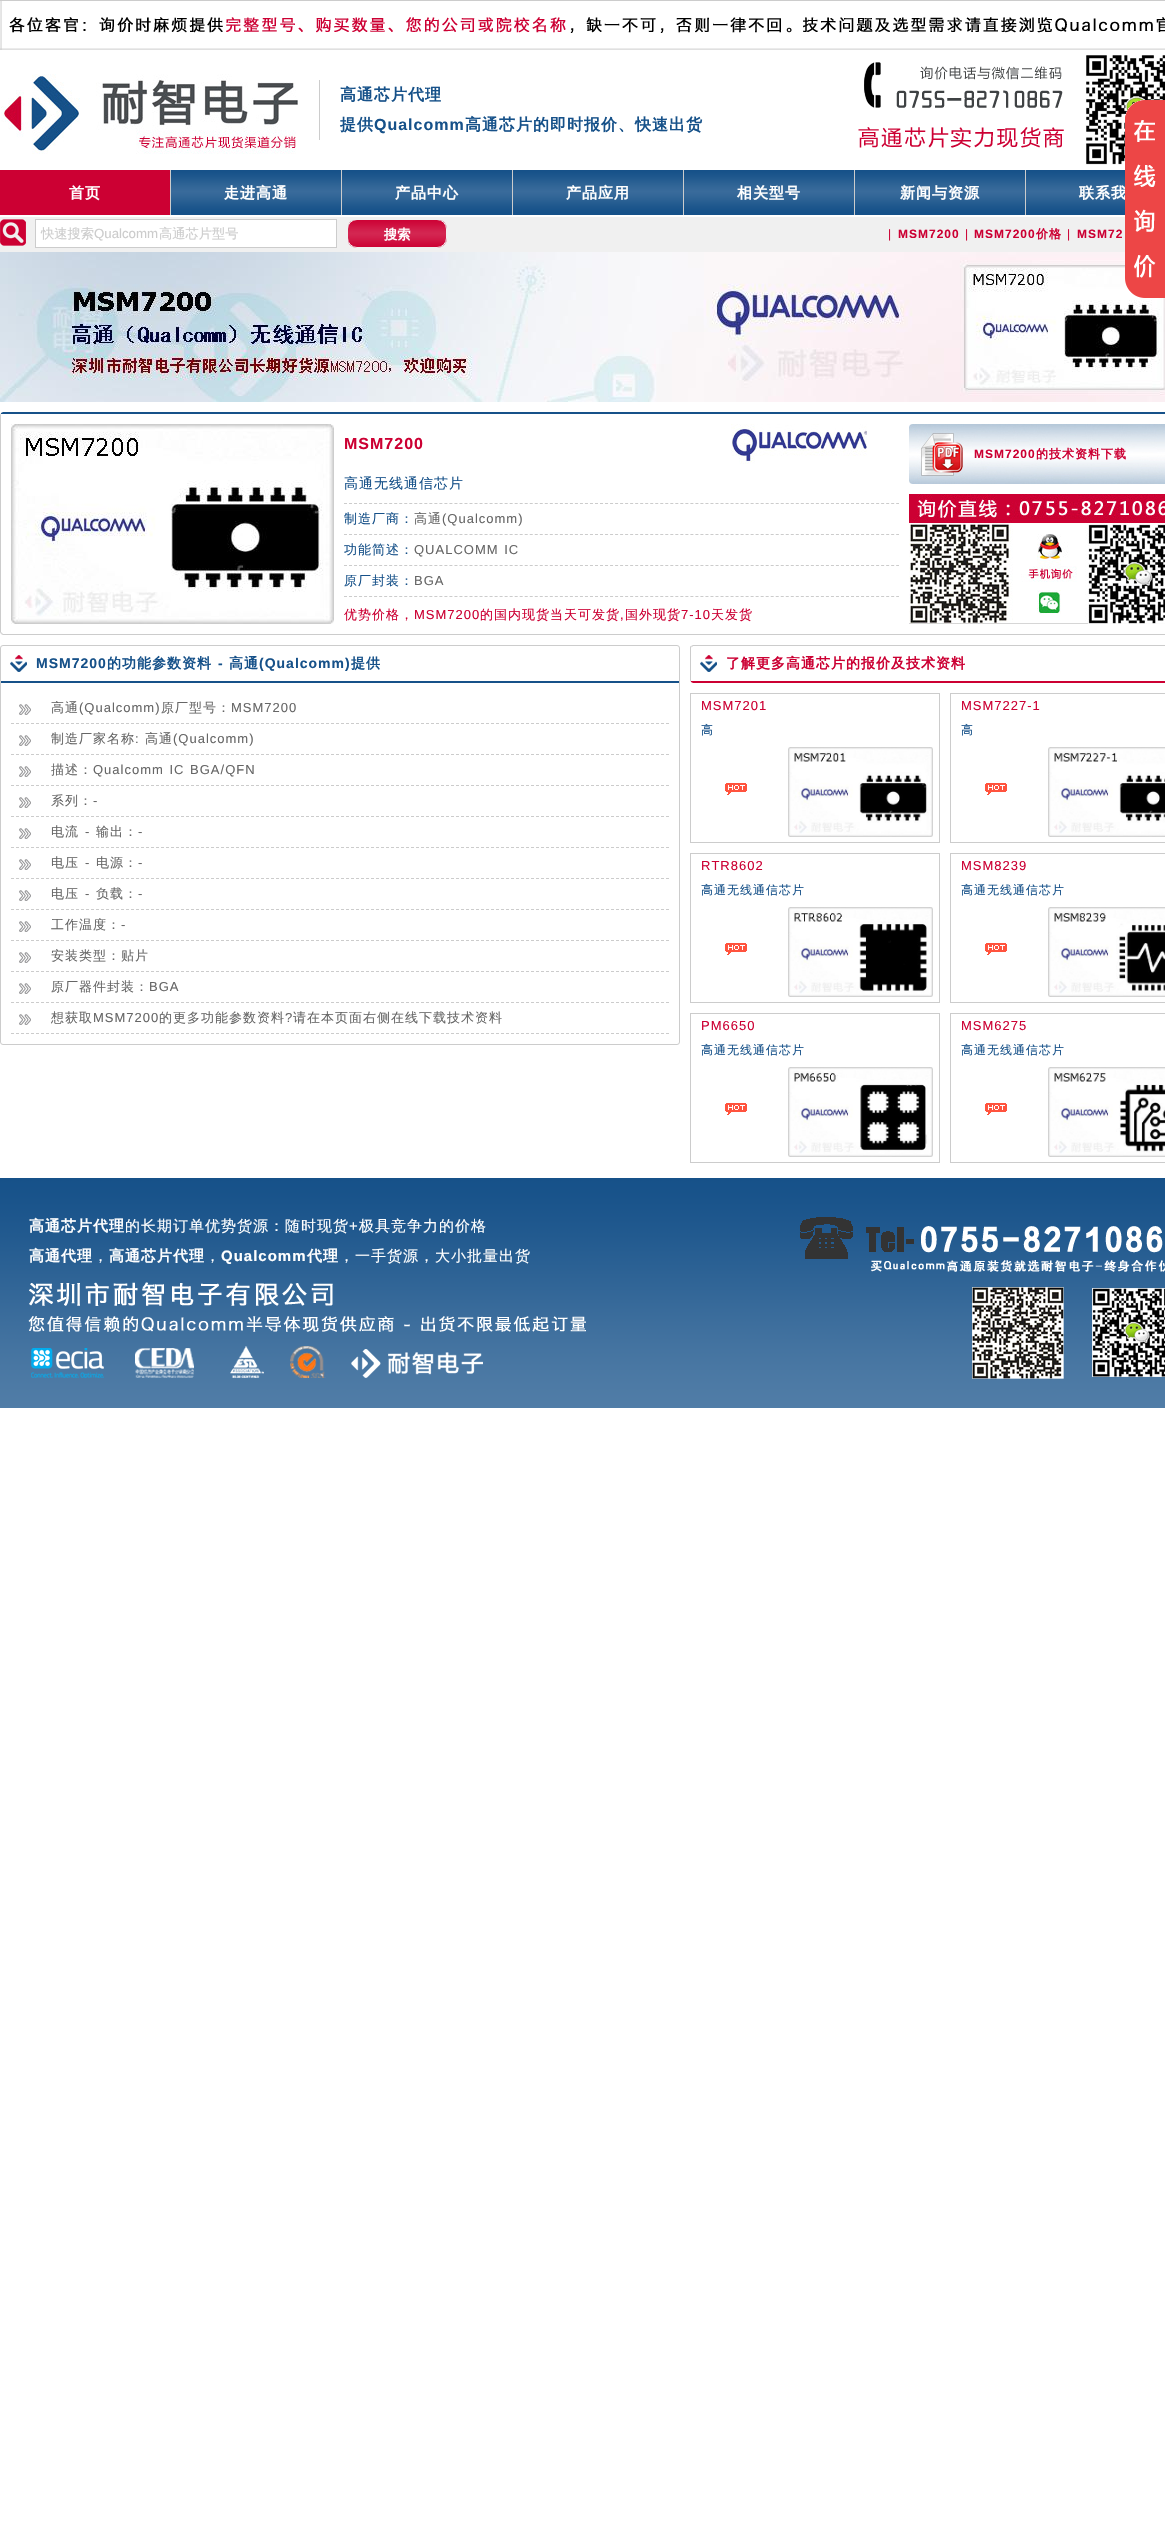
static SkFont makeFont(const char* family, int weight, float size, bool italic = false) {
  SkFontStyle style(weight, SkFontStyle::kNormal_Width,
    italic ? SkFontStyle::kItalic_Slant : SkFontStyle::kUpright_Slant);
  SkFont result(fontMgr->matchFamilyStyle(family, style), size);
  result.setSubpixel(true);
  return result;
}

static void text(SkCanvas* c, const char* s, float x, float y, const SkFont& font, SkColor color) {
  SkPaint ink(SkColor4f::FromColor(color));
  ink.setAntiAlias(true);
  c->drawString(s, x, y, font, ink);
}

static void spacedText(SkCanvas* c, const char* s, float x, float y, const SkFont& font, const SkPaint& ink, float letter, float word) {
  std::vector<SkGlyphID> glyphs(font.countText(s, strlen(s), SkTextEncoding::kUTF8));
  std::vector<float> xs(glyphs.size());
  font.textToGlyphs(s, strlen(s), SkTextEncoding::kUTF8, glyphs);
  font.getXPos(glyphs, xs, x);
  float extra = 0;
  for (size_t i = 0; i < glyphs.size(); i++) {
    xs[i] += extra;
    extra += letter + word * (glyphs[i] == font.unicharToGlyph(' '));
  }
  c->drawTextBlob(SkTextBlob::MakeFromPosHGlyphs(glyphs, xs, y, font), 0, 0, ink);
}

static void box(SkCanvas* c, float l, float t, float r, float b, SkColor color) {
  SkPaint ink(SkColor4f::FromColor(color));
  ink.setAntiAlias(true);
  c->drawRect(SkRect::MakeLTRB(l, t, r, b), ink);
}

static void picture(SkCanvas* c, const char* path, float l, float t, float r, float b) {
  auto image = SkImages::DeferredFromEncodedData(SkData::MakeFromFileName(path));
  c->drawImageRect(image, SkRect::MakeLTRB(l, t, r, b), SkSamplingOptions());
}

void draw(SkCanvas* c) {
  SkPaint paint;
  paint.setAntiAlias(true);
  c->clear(0xffffffff);
  picture(c, "img_01.png", 0, 0, 1165, 50);
  picture(c, "img_02.png", 1, 74, 298, 154);
  box(c, 319, 80, 320, 140, 0xffcccccc);
  SkFont face1 = makeFont("WenQuanYi Zen Hei", 700, 16);
  paint.setColor(0xff165189);
  spacedText(c, "高通芯片代理", 340, 100, face1, paint, 1, 0);
  spacedText(c, "提供", 340, 130, face1, paint, 1, 0);
  SkFont face2 = makeFont("Liberation Sans", 700, 16);
  spacedText(c, "Qualcomm", 374, 130, face2, paint, 1, 0);
  spacedText(c, "高通芯片的即时报价、快速出货", 465, 130, face1, paint, 1, 0);
  picture(c, "img_03.png", 858, 55, 1165, 165);
  picture(c, "img_05.png", 171, 170, 1125, 215);
  SkFont face3 = makeFont("WenQuanYi Zen Hei", 700, 15);
  paint.setColor(0xffffffff);
  spacedText(c, "联系我", 1079, 198, face3, paint, 1, 0);
  picture(c, "img_08.png", 0, 252, 1165, 402);
  picture(c, "img_04.png", 1125, 100, 1165, 298);
  box(c, 0, 170, 170, 215, 0xffcc0033);
  box(c, 170, 170, 171, 215, 0xffcccccc);
  spacedText(c, "首页", 69, 198, face3, paint, 1, 0);
  box(c, 341, 170, 342, 215, 0xffcccccc);
  spacedText(c, "走进高通", 224, 198, face3, paint, 1, 0);
  box(c, 512, 170, 513, 215, 0xffcccccc);
  spacedText(c, "产品中心", 395, 198, face3, paint, 1, 0);
  box(c, 683, 170, 684, 215, 0xffcccccc);
  spacedText(c, "产品应用", 566, 198, face3, paint, 1, 0);
  box(c, 854, 170, 855, 215, 0xffcccccc);
  spacedText(c, "相关型号", 737, 198, face3, paint, 1, 0);
  box(c, 1025, 170, 1026, 215, 0xffcccccc);
  spacedText(c, "新闻与资源", 900, 198, face3, paint, 1, 0);
  box(c, 0, 217, 1125, 252, 0xfff0f0f0);
  picture(c, "img_06.png", 0, 219, 26, 246);
  c->drawRect(SkRect::MakeLTRB(35.5f, 219.5f, 336.5f, 247.5f), paint);
  paint.setStyle(SkPaint::kStroke_Style);
  paint.setStrokeWidth(1);
  paint.setColor(0xffcccccc);
  c->drawRect(SkRect::MakeLTRB(35.5f, 219.5f, 336.5f, 247.5f), paint);
  SkFont face4 = makeFont("WenQuanYi Zen Hei", 500, 13.25f);
  text(c, "快速搜索", 41, 238, face4, 0xffcccccc);
  SkFont face5 = makeFont("Liberation Sans", 400, 13.25f);
  text(c, "Qualcomm", 94, 238, face5, 0xffcccccc);
  text(c, "高通芯片型号", 159, 238, face4, 0xffcccccc);
  picture(c, "img_07.png", 348, 220, 447, 248);
  paint.setColor(0xfff0f0f0);
  c->drawRoundRect(SkRect::MakeLTRB(347.5f, 219.5f, 446.5f, 247.5f), 9.5f, 9.5f, paint);
  SkFont face6 = makeFont("WenQuanYi Zen Hei", 700, 13.25f);
  text(c, "搜索", 384, 239, face6, 0xffffffff);
  SkFont face7 = makeFont("Liberation Sans", 400, 12);
  paint.setStyle(SkPaint::kFill_Style);
  paint.setColor(0xffcc0033);
  spacedText(c, "|", 888, 238, face7, paint, 1, 0);
  SkFont face8 = makeFont("Liberation Sans", 700, 12);
  spacedText(c, "MSM7200", 898, 238, face8, paint, 1, 0);
  spacedText(c, "|", 965, 238, face7, paint, 1, 0);
  spacedText(c, "MSM7200", 974, 238, face8, paint, 1, 0);
  SkFont face9 = makeFont("WenQuanYi Zen Hei", 700, 12);
  spacedText(c, "价格", 1036, 238, face9, paint, 1, 0);
  spacedText(c, "|", 1067, 238, face7, paint, 1, 0);
  spacedText(c, "MSM72", 1077, 238, face8, paint, 1, 0);
  paint.setColor(0xff165189);
  c->drawPath(SkPathBuilder().moveTo(3, 412).lineTo(1, 413).lineTo(1, 414).lineTo(3, 414).lineTo(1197, 414).lineTo(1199, 414).lineTo(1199, 413).lineTo(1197, 412).close().detach(), paint);
  paint.setColor(0xffcccccc);
  c->drawPath(SkPathBuilder().moveTo(3, 635).lineTo(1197, 635).lineTo(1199, 634).lineTo(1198, 633).lineTo(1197, 634).lineTo(3, 634).lineTo(2, 633).lineTo(1, 634).close().detach(), paint);
  c->drawPath(SkPathBuilder().moveTo(0, 415).lineTo(0, 632).lineTo(1, 634).lineTo(2, 633).lineTo(1, 632).lineTo(1, 414).lineTo(1, 413).close().detach(), paint);
  picture(c, "img_09.png", 11, 424, 334, 624);
  paint.setColor(0xffcc0033);
  spacedText(c, "MSM7200", 344, 449, face2, paint, 1, 0);
  picture(c, "img_10.png", 731, 424, 867, 464);
  paint.setStyle(SkPaint::kStroke_Style);
  paint.setColor(0xffcccccc);
  paint.setPathEffect(SkDashPathEffect::Make({{3, 2.02f}}, 0));
  c->drawPath(SkPathBuilder().moveTo(344, 503.5f).lineTo(899, 503.5f).detach(), paint);
  paint.setPathEffect(nullptr);
  SkFont face10 = makeFont("WenQuanYi Zen Hei", 500, 14);
  paint.setStyle(SkPaint::kFill_Style);
  paint.setColor(0xff165189);
  spacedText(c, "高通无线通信芯片", 344, 488, face10, paint, 1, 0);
  paint.setStyle(SkPaint::kStroke_Style);
  paint.setColor(0xffcccccc);
  paint.setPathEffect(SkDashPathEffect::Make({{3, 2.02f}}, 0));
  c->drawPath(SkPathBuilder().moveTo(344, 534.5f).lineTo(899, 534.5f).detach(), paint);
  paint.setPathEffect(nullptr);
  SkFont face11 = makeFont("WenQuanYi Zen Hei", 500, 13);
  paint.setStyle(SkPaint::kFill_Style);
  paint.setColor(0xff165189);
  spacedText(c, "制造厂商：", 344, 523, face11, paint, 1, 0);
  paint.setColor(0xff666666);
  spacedText(c, "高通", 414, 523, face11, paint, 1, 0);
  SkFont face12 = makeFont("Liberation Sans", 400, 13);
  spacedText(c, "(Qualcomm)", 442, 523, face12, paint, 1, 0);
  paint.setStyle(SkPaint::kStroke_Style);
  paint.setColor(0xffcccccc);
  paint.setPathEffect(SkDashPathEffect::Make({{3, 2.02f}}, 0));
  c->drawPath(SkPathBuilder().moveTo(344, 565.5f).lineTo(899, 565.5f).detach(), paint);
  paint.setPathEffect(nullptr);
  paint.setStyle(SkPaint::kFill_Style);
  paint.setColor(0xff165189);
  spacedText(c, "功能简述：", 344, 554, face11, paint, 1, 0);
  paint.setColor(0xff666666);
  spacedText(c, "QUALCOMM IC", 414, 554, face12, paint, 1, 1);
  paint.setStyle(SkPaint::kStroke_Style);
  paint.setColor(0xffcccccc);
  paint.setPathEffect(SkDashPathEffect::Make({{3, 2.02f}}, 0));
  c->drawPath(SkPathBuilder().moveTo(344, 596.5f).lineTo(899, 596.5f).detach(), paint);
  paint.setPathEffect(nullptr);
  paint.setStyle(SkPaint::kFill_Style);
  paint.setColor(0xff165189);
  spacedText(c, "原厂封装：", 344, 585, face11, paint, 1, 0);
  paint.setColor(0xff666666);
  spacedText(c, "BGA", 414, 585, face12, paint, 1, 0);
  paint.setColor(0xffcc0033);
  spacedText(c, "优势价格，", 344, 619, face11, paint, 1, 0);
  spacedText(c, "MSM7200", 414, 619, face12, paint, 1, 0);
  spacedText(c, "的国内现货当天可发货 国外现货", 480, 619, face11, paint, 1, 0);
  spacedText(c, "7-10", 681, 619, face12, paint, 1, 0);
  spacedText(c, "天发货", 711, 619, face11, paint, 1, 0);
  spacedText(c, ",", 620, 619, face12, paint, 1, 0);
  picture(c, "img_11.png", 909, 424, 1165, 484);
  spacedText(c, "MSM7200", 974, 458, face8, paint, 1, 0);
  spacedText(c, "的技术资料下载", 1036, 458, face9, paint, 1, 0);
  picture(c, "img_12.png", 909, 494, 1165, 624);
  paint.setStyle(SkPaint::kStroke_Style);
  paint.setColor(0xffcccccc);
  c->drawRoundRect(SkRect::MakeLTRB(0.5f, 645.5f, 679.5f, 1044.5f), 2.5f, 2.5f, paint);
  picture(c, "img_13.png", 10, 655, 27, 672);
  box(c, 1, 681, 679, 683, 0xff165189);
  SkFont face13 = makeFont("Liberation Sans", 700, 14);
  paint.setStyle(SkPaint::kFill_Style);
  paint.setColor(0xff165189);
  spacedText(c, "MSM7200", 36, 668, face13, paint, 1, 0);
  SkFont face14 = makeFont("WenQuanYi Zen Hei", 700, 14);
  spacedText(c, "的功能参数资料", 107, 668, face14, paint, 1, 0);
  spacedText(c, "-", 218, 668, face13, paint, 1, 0);
  spacedText(c, "高通", 229, 668, face14, paint, 1, 0);
  spacedText(c, "(Qualcomm)", 259, 668, face13, paint, 1, 0);
  spacedText(c, "提供", 351, 668, face14, paint, 1, 0);
  picture(c, "img_14.png", 19, 704, 31, 715);
  paint.setStyle(SkPaint::kStroke_Style);
  paint.setColor(0xffcccccc);
  paint.setPathEffect(SkDashPathEffect::Make({{3, 2}}, 0));
  c->drawPath(SkPathBuilder().moveTo(11, 723.5f).lineTo(669, 723.5f).detach(), paint);
  paint.setPathEffect(nullptr);
  paint.setStyle(SkPaint::kFill_Style);
  paint.setColor(0xff666666);
  spacedText(c, "高通", 51, 712, face11, paint, 1, 0);
  spacedText(c, "(Qualcomm)", 79, 712, face12, paint, 1, 0);
  spacedText(c, "原厂型号：", 161, 712, face11, paint, 1, 0);
  spacedText(c, "MSM7200", 231, 712, face12, paint, 1, 0);
  picture(c, "img_14.png", 19, 735, 31, 746);
  paint.setStyle(SkPaint::kStroke_Style);
  paint.setColor(0xffcccccc);
  paint.setPathEffect(SkDashPathEffect::Make({{3, 2}}, 0));
  c->drawPath(SkPathBuilder().moveTo(11, 754.5f).lineTo(669, 754.5f).detach(), paint);
  paint.setPathEffect(nullptr);
  paint.setStyle(SkPaint::kFill_Style);
  paint.setColor(0xff666666);
  spacedText(c, "制造厂家名称", 51, 743, face11, paint, 1, 0);
  spacedText(c, ":", 135, 743, face12, paint, 1, 0);
  spacedText(c, "高通", 145, 743, face11, paint, 1, 0);
  spacedText(c, "(Qualcomm)", 173, 743, face12, paint, 1, 0);
  picture(c, "img_14.png", 19, 766, 31, 777);
  paint.setStyle(SkPaint::kStroke_Style);
  paint.setColor(0xffcccccc);
  paint.setPathEffect(SkDashPathEffect::Make({{3, 2}}, 0));
  c->drawPath(SkPathBuilder().moveTo(11, 785.5f).lineTo(669, 785.5f).detach(), paint);
  paint.setPathEffect(nullptr);
  paint.setStyle(SkPaint::kFill_Style);
  paint.setColor(0xff666666);
  spacedText(c, "描述：", 51, 774, face11, paint, 1, 0);
  spacedText(c, "Qualcomm IC BGA/QFN", 93, 774, face12, paint, 1, 1);
  picture(c, "img_14.png", 19, 797, 31, 808);
  paint.setStyle(SkPaint::kStroke_Style);
  paint.setColor(0xffcccccc);
  paint.setPathEffect(SkDashPathEffect::Make({{3, 2}}, 0));
  c->drawPath(SkPathBuilder().moveTo(11, 816.5f).lineTo(669, 816.5f).detach(), paint);
  paint.setPathEffect(nullptr);
  paint.setStyle(SkPaint::kFill_Style);
  paint.setColor(0xff666666);
  spacedText(c, "系列：", 51, 805, face11, paint, 1, 0);
  spacedText(c, "-", 93, 805, face12, paint, 1, 0);
  picture(c, "img_14.png", 19, 828, 31, 839);
  paint.setStyle(SkPaint::kStroke_Style);
  paint.setColor(0xffcccccc);
  paint.setPathEffect(SkDashPathEffect::Make({{3, 2}}, 0));
  c->drawPath(SkPathBuilder().moveTo(11, 847.5f).lineTo(669, 847.5f).detach(), paint);
  paint.setPathEffect(nullptr);
  paint.setStyle(SkPaint::kFill_Style);
  paint.setColor(0xff666666);
  spacedText(c, "电流", 51, 836, face11, paint, 1, 0);
  spacedText(c, "-", 85, 836, face12, paint, 1, 0);
  spacedText(c, "输出：", 96, 836, face11, paint, 1, 0);
  spacedText(c, "-", 138, 836, face12, paint, 1, 0);
  picture(c, "img_14.png", 19, 859, 31, 870);
  paint.setStyle(SkPaint::kStroke_Style);
  paint.setColor(0xffcccccc);
  paint.setPathEffect(SkDashPathEffect::Make({{3, 2}}, 0));
  c->drawPath(SkPathBuilder().moveTo(11, 878.5f).lineTo(669, 878.5f).detach(), paint);
  paint.setPathEffect(nullptr);
  paint.setStyle(SkPaint::kFill_Style);
  paint.setColor(0xff666666);
  spacedText(c, "电压", 51, 867, face11, paint, 1, 0);
  spacedText(c, "-", 85, 867, face12, paint, 1, 0);
  spacedText(c, "电源：", 96, 867, face11, paint, 1, 0);
  spacedText(c, "-", 138, 867, face12, paint, 1, 0);
  picture(c, "img_14.png", 19, 890, 31, 901);
  paint.setStyle(SkPaint::kStroke_Style);
  paint.setColor(0xffcccccc);
  paint.setPathEffect(SkDashPathEffect::Make({{3, 2}}, 0));
  c->drawPath(SkPathBuilder().moveTo(11, 909.5f).lineTo(669, 909.5f).detach(), paint);
  paint.setPathEffect(nullptr);
  paint.setStyle(SkPaint::kFill_Style);
  paint.setColor(0xff666666);
  spacedText(c, "电压", 51, 898, face11, paint, 1, 0);
  spacedText(c, "-", 85, 898, face12, paint, 1, 0);
  spacedText(c, "负载：", 96, 898, face11, paint, 1, 0);
  spacedText(c, "-", 138, 898, face12, paint, 1, 0);
  picture(c, "img_14.png", 19, 921, 31, 932);
  paint.setStyle(SkPaint::kStroke_Style);
  paint.setColor(0xffcccccc);
  paint.setPathEffect(SkDashPathEffect::Make({{3, 2}}, 0));
  c->drawPath(SkPathBuilder().moveTo(11, 940.5f).lineTo(669, 940.5f).detach(), paint);
  paint.setPathEffect(nullptr);
  paint.setStyle(SkPaint::kFill_Style);
  paint.setColor(0xff666666);
  spacedText(c, "工作温度：", 51, 929, face11, paint, 1, 0);
  spacedText(c, "-", 121, 929, face12, paint, 1, 0);
  picture(c, "img_14.png", 19, 952, 31, 963);
  paint.setStyle(SkPaint::kStroke_Style);
  paint.setColor(0xffcccccc);
  paint.setPathEffect(SkDashPathEffect::Make({{3, 2}}, 0));
  c->drawPath(SkPathBuilder().moveTo(11, 971.5f).lineTo(669, 971.5f).detach(), paint);
  paint.setPathEffect(nullptr);
  paint.setStyle(SkPaint::kFill_Style);
  paint.setColor(0xff666666);
  spacedText(c, "安装类型：贴片", 51, 960, face11, paint, 1, 0);
  picture(c, "img_14.png", 19, 983, 31, 994);
  paint.setStyle(SkPaint::kStroke_Style);
  paint.setColor(0xffcccccc);
  paint.setPathEffect(SkDashPathEffect::Make({{3, 2}}, 0));
  c->drawPath(SkPathBuilder().moveTo(11, 1002.5f).lineTo(669, 1002.5f).detach(), paint);
  paint.setPathEffect(nullptr);
  paint.setStyle(SkPaint::kFill_Style);
  paint.setColor(0xff666666);
  spacedText(c, "原厂器件封装：", 51, 991, face11, paint, 1, 0);
  spacedText(c, "BGA", 149, 991, face12, paint, 1, 0);
  picture(c, "img_14.png", 19, 1014, 31, 1025);
  paint.setStyle(SkPaint::kStroke_Style);
  paint.setColor(0xffcccccc);
  paint.setPathEffect(SkDashPathEffect::Make({{3, 2}}, 0));
  c->drawPath(SkPathBuilder().moveTo(11, 1033.5f).lineTo(669, 1033.5f).detach(), paint);
  paint.setPathEffect(nullptr);
  paint.setStyle(SkPaint::kFill_Style);
  paint.setColor(0xff666666);
  spacedText(c, "想获取", 51, 1022, face11, paint, 1, 0);
  spacedText(c, "MSM7200", 93, 1022, face12, paint, 1, 0);
  spacedText(c, "的更多功能参数资料", 159, 1022, face11, paint, 1, 0);
  spacedText(c, "?", 285, 1022, face12, paint, 1, 0);
  spacedText(c, "请在本页面右侧在线下载技术资料", 293, 1022, face11, paint, 1, 0);
  picture(c, "img_13.png", 700, 655, 717, 672);
  paint.setColor(0xffcccccc);
  c->drawPath(SkPathBuilder().moveTo(693, 645).lineTo(691, 646).lineTo(692, 647).lineTo(693, 646).lineTo(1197, 646).lineTo(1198, 647).lineTo(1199, 646).lineTo(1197, 645).close().detach(), paint);
  paint.setColor(0xffcc0033);
  c->drawPath(SkPathBuilder().moveTo(693, 683).lineTo(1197, 683).lineTo(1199, 682).lineTo(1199, 681).lineTo(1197, 681).lineTo(693, 681).lineTo(691, 681).lineTo(691, 682).close().detach(), paint);
  paint.setColor(0xffcccccc);
  c->drawPath(SkPathBuilder().moveTo(690, 648).lineTo(690, 680).cubicTo(690, 681, 690, 681.5f, 690.5f, 682).lineTo(691, 680.5f).lineTo(691, 648).lineTo(691.5f, 646.5f).lineTo(691, 646).cubicTo(690, 646, 690, 647, 690, 648).close().detach(), paint);
  paint.setColor(0xffcc0033);
  spacedText(c, "了解更多高通芯片的报价及技术资料", 726, 668, face14, paint, 1, 0);
  picture(c, "img_15.png", 725, 783, 747, 795);
  paint.setStyle(SkPaint::kStroke_Style);
  paint.setColor(0xffcccccc);
  c->drawRect(SkRect::MakeLTRB(690.5f, 693.5f, 939.5f, 842.5f), paint);
  paint.setStyle(SkPaint::kFill_Style);
  paint.setColor(0xffcc0033);
  spacedText(c, "MSM7201", 701, 710, face12, paint, 1, 0);
  SkFont face15 = makeFont("WenQuanYi Zen Hei", 500, 12);
  paint.setColor(0xff165189);
  spacedText(c, "高", 701, 734, face15, paint, 1, 0);
  picture(c, "img_16.png", 788, 747, 933, 837);
  picture(c, "img_15.png", 985, 783, 1007, 795);
  paint.setStyle(SkPaint::kStroke_Style);
  paint.setColor(0xffcccccc);
  c->drawRect(SkRect::MakeLTRB(950.5f, 693.5f, 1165.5f, 842.5f), paint);
  paint.setStyle(SkPaint::kFill_Style);
  paint.setColor(0xffcc0033);
  spacedText(c, "MSM7227-1", 961, 710, face12, paint, 1, 0);
  paint.setColor(0xff165189);
  spacedText(c, "高", 961, 734, face15, paint, 1, 0);
  picture(c, "img_17.png", 1048, 747, 1165, 837);
  picture(c, "img_15.png", 725, 943, 747, 955);
  paint.setStyle(SkPaint::kStroke_Style);
  paint.setColor(0xffcccccc);
  c->drawRect(SkRect::MakeLTRB(690.5f, 853.5f, 939.5f, 1002.5f), paint);
  paint.setStyle(SkPaint::kFill_Style);
  paint.setColor(0xffcc0033);
  spacedText(c, "RTR8602", 701, 870, face12, paint, 1, 0);
  paint.setColor(0xff165189);
  spacedText(c, "高通无线通信芯片", 701, 894, face15, paint, 1, 0);
  picture(c, "img_18.png", 788, 907, 933, 997);
  picture(c, "img_15.png", 985, 943, 1007, 955);
  paint.setStyle(SkPaint::kStroke_Style);
  paint.setColor(0xffcccccc);
  c->drawRect(SkRect::MakeLTRB(950.5f, 853.5f, 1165.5f, 1002.5f), paint);
  paint.setStyle(SkPaint::kFill_Style);
  paint.setColor(0xffcc0033);
  spacedText(c, "MSM8239", 961, 870, face12, paint, 1, 0);
  paint.setColor(0xff165189);
  spacedText(c, "高通无线通信芯片", 961, 894, face15, paint, 1, 0);
  picture(c, "img_19.png", 1048, 907, 1165, 997);
  picture(c, "img_15.png", 725, 1103, 747, 1115);
  paint.setStyle(SkPaint::kStroke_Style);
  paint.setColor(0xffcccccc);
  c->drawRect(SkRect::MakeLTRB(690.5f, 1013.5f, 939.5f, 1162.5f), paint);
  paint.setStyle(SkPaint::kFill_Style);
  paint.setColor(0xffcc0033);
  spacedText(c, "PM6650", 701, 1030, face12, paint, 1, 0);
  paint.setColor(0xff165189);
  spacedText(c, "高通无线通信芯片", 701, 1054, face15, paint, 1, 0);
  picture(c, "img_20.png", 788, 1067, 933, 1157);
  picture(c, "img_15.png", 985, 1103, 1007, 1115);
  paint.setStyle(SkPaint::kStroke_Style);
  paint.setColor(0xffcccccc);
  c->drawRect(SkRect::MakeLTRB(950.5f, 1013.5f, 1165.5f, 1162.5f), paint);
  paint.setStyle(SkPaint::kFill_Style);
  paint.setColor(0xffcc0033);
  spacedText(c, "MSM6275", 961, 1030, face12, paint, 1, 0);
  paint.setColor(0xff165189);
  spacedText(c, "高通无线通信芯片", 961, 1054, face15, paint, 1, 0);
  picture(c, "img_21.png", 1048, 1067, 1165, 1157);
  picture(c, "img_22.png", 0, 1178, 1165, 1408);
  picture(c, "img_23.png", 28, 1282, 586, 1378);
  paint.setColor(0xffffffff);
  spacedText(c, "高通芯片代理", 29, 1231, face3, paint, 1, 0);
  SkFont face16 = makeFont("WenQuanYi Zen Hei", 500, 15);
  spacedText(c, "的长期订单优势货源：随时现货", 125, 1231, face16, paint, 1, 0);
  SkFont face17 = makeFont("Liberation Sans", 400, 15);
  spacedText(c, "+", 349, 1231, face17, paint, 1, 0);
  spacedText(c, "极具竞争力的价格", 359, 1231, face16, paint, 1, 0);
  spacedText(c, "高通代理", 29, 1261, face3, paint, 1, 0);
  spacedText(c, "，", 93, 1261, face16, paint, 1, 0);
  spacedText(c, "高通芯片代理", 109, 1261, face3, paint, 1, 0);
  spacedText(c, "，", 205, 1261, face16, paint, 1, 0);
  SkFont face18 = makeFont("Liberation Sans", 700, 15);
  spacedText(c, "Qualcomm", 221, 1261, face18, paint, 1, 0);
  spacedText(c, "代理", 307, 1261, face3, paint, 1, 0);
  spacedText(c, "，一手货源，大小批量出货", 339, 1261, face16, paint, 1, 0);
  picture(c, "img_24.png", 800, 1217, 1165, 1379);
}
